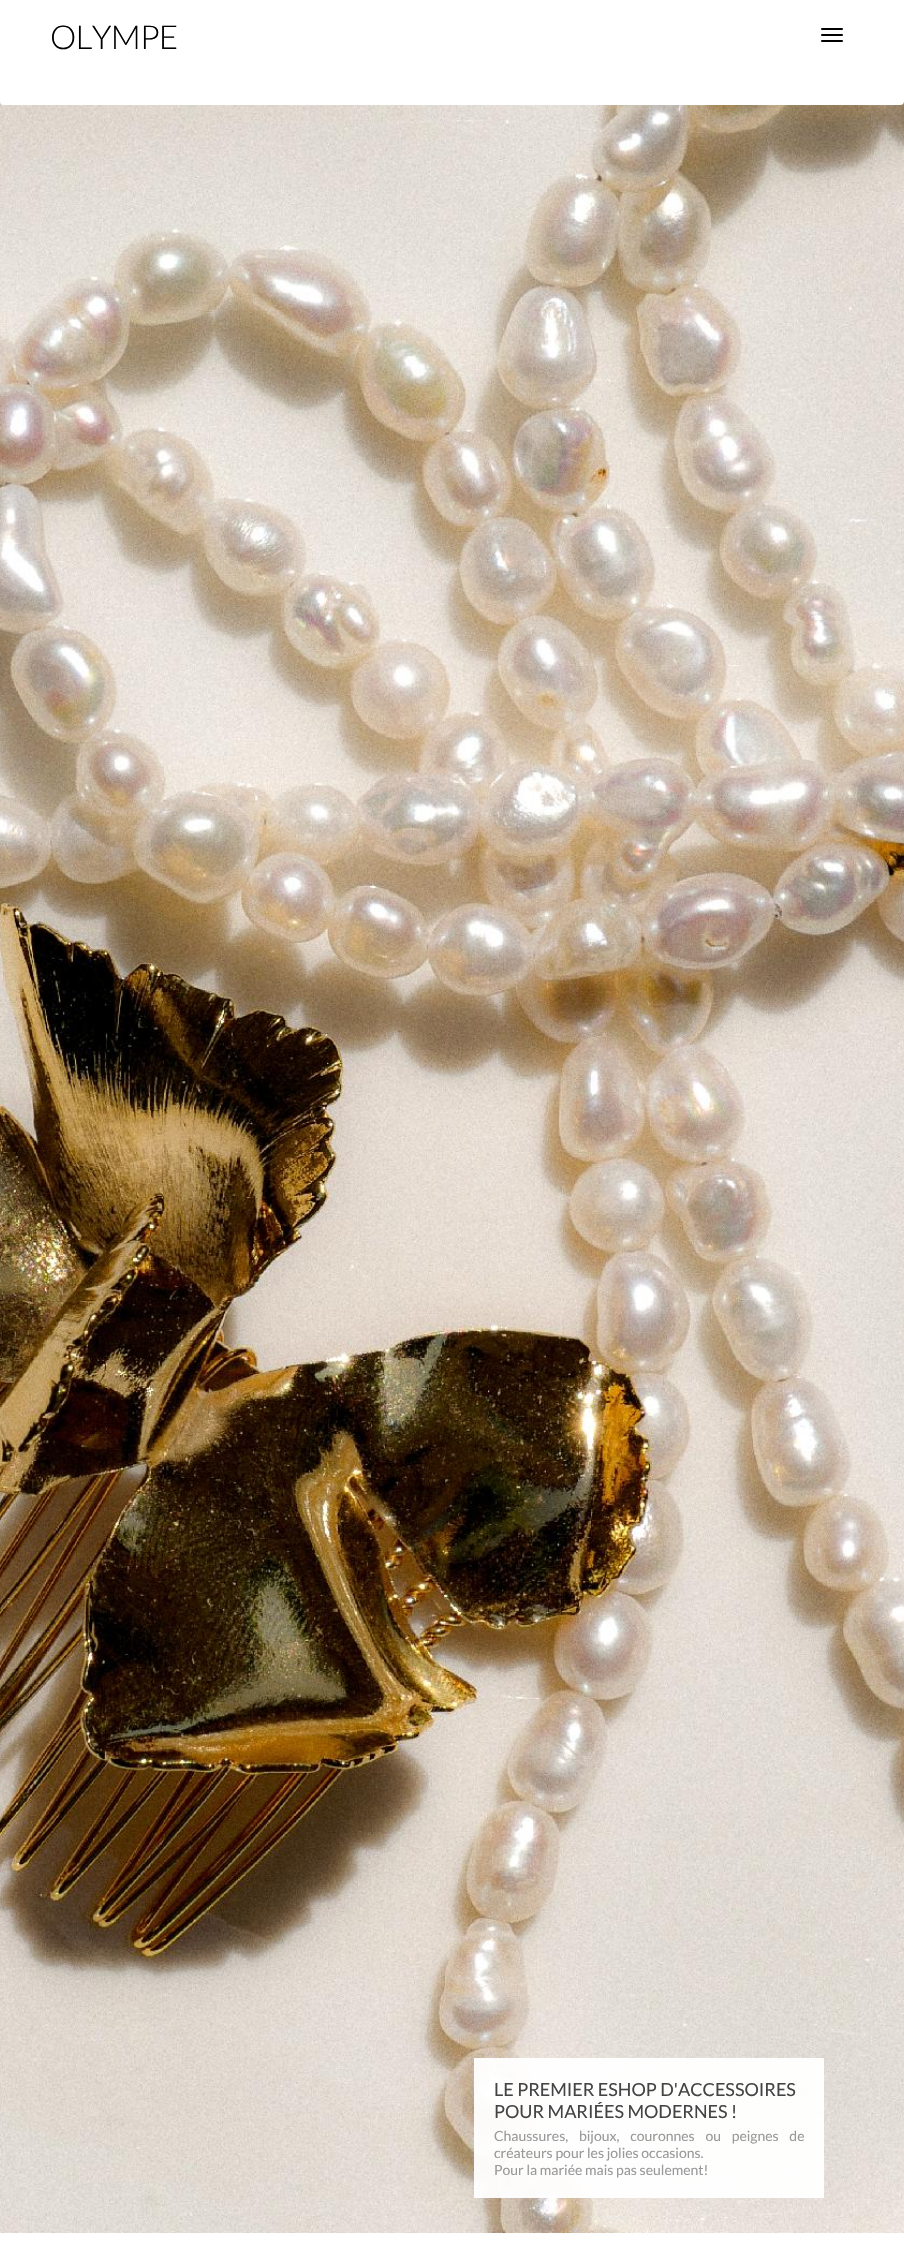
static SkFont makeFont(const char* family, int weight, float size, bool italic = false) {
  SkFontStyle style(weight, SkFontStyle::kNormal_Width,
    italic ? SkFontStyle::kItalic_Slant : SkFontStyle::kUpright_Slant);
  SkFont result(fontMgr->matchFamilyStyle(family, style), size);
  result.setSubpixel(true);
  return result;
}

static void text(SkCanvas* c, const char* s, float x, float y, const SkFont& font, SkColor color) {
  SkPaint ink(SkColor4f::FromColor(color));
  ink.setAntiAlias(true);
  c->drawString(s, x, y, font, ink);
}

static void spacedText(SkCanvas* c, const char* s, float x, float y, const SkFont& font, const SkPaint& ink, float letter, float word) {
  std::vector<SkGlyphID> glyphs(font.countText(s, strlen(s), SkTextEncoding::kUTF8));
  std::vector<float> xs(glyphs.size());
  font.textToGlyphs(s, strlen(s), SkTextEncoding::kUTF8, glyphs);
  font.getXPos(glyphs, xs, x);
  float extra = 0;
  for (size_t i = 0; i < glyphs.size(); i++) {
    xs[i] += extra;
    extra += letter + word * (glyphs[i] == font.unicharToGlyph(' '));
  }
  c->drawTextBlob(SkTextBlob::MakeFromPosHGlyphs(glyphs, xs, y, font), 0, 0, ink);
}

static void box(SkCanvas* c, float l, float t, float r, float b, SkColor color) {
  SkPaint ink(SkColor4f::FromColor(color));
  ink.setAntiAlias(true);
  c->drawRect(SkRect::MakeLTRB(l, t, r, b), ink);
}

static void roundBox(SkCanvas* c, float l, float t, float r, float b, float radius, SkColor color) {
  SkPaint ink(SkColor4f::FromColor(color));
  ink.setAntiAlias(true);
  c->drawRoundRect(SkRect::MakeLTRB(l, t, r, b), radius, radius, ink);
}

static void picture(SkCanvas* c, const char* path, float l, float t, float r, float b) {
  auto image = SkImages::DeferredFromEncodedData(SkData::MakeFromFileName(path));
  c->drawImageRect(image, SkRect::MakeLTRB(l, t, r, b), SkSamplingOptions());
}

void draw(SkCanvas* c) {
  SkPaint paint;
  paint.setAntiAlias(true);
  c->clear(0xffffffff);
  SkFont face1 = makeFont("Lato", 300, 33);
  paint.setColor(0xff000000);
  spacedText(c, "OLYMPE", 50, 49, face1, paint, -0.75f, 0);
  roundBox(c, 821, 28, 843, 30, 1, 0xff000000);
  roundBox(c, 821, 34, 843, 36, 1, 0xff000000);
  roundBox(c, 821, 40, 843, 42, 1, 0xff000000);
  picture(c, "img_01.png", 0, 101, 904, 2233);
  roundBox(c, 0, 80, 904, 105, 4, 0xffffffff);
  box(c, 474, 2058, 824, 2198, 0xf2ffffff);
  SkFont face2 = makeFont("Lato", 400, 18);
  text(c, "LE PREMIER ESHOP D'ACCESSOIRES", 494, 2096, face2, 0xff444444);
  text(c, "POUR MARIÉES MODERNES !", 494, 2118, face2, 0xff444444);
  SkFont face3 = makeFont("Lato", 400, 14);
  paint.setColor(0xff999999);
  spacedText(c, "Chaussures, bijoux, couronnes ou peignes de", 494, 2141, face3, paint, 0, 8);
  text(c, "créateurs pour les jolies occasions.", 494, 2158, face3, 0xff999999);
  text(c, "Pour la mariée mais pas seulement!", 494, 2175, face3, 0xff999999);
}
